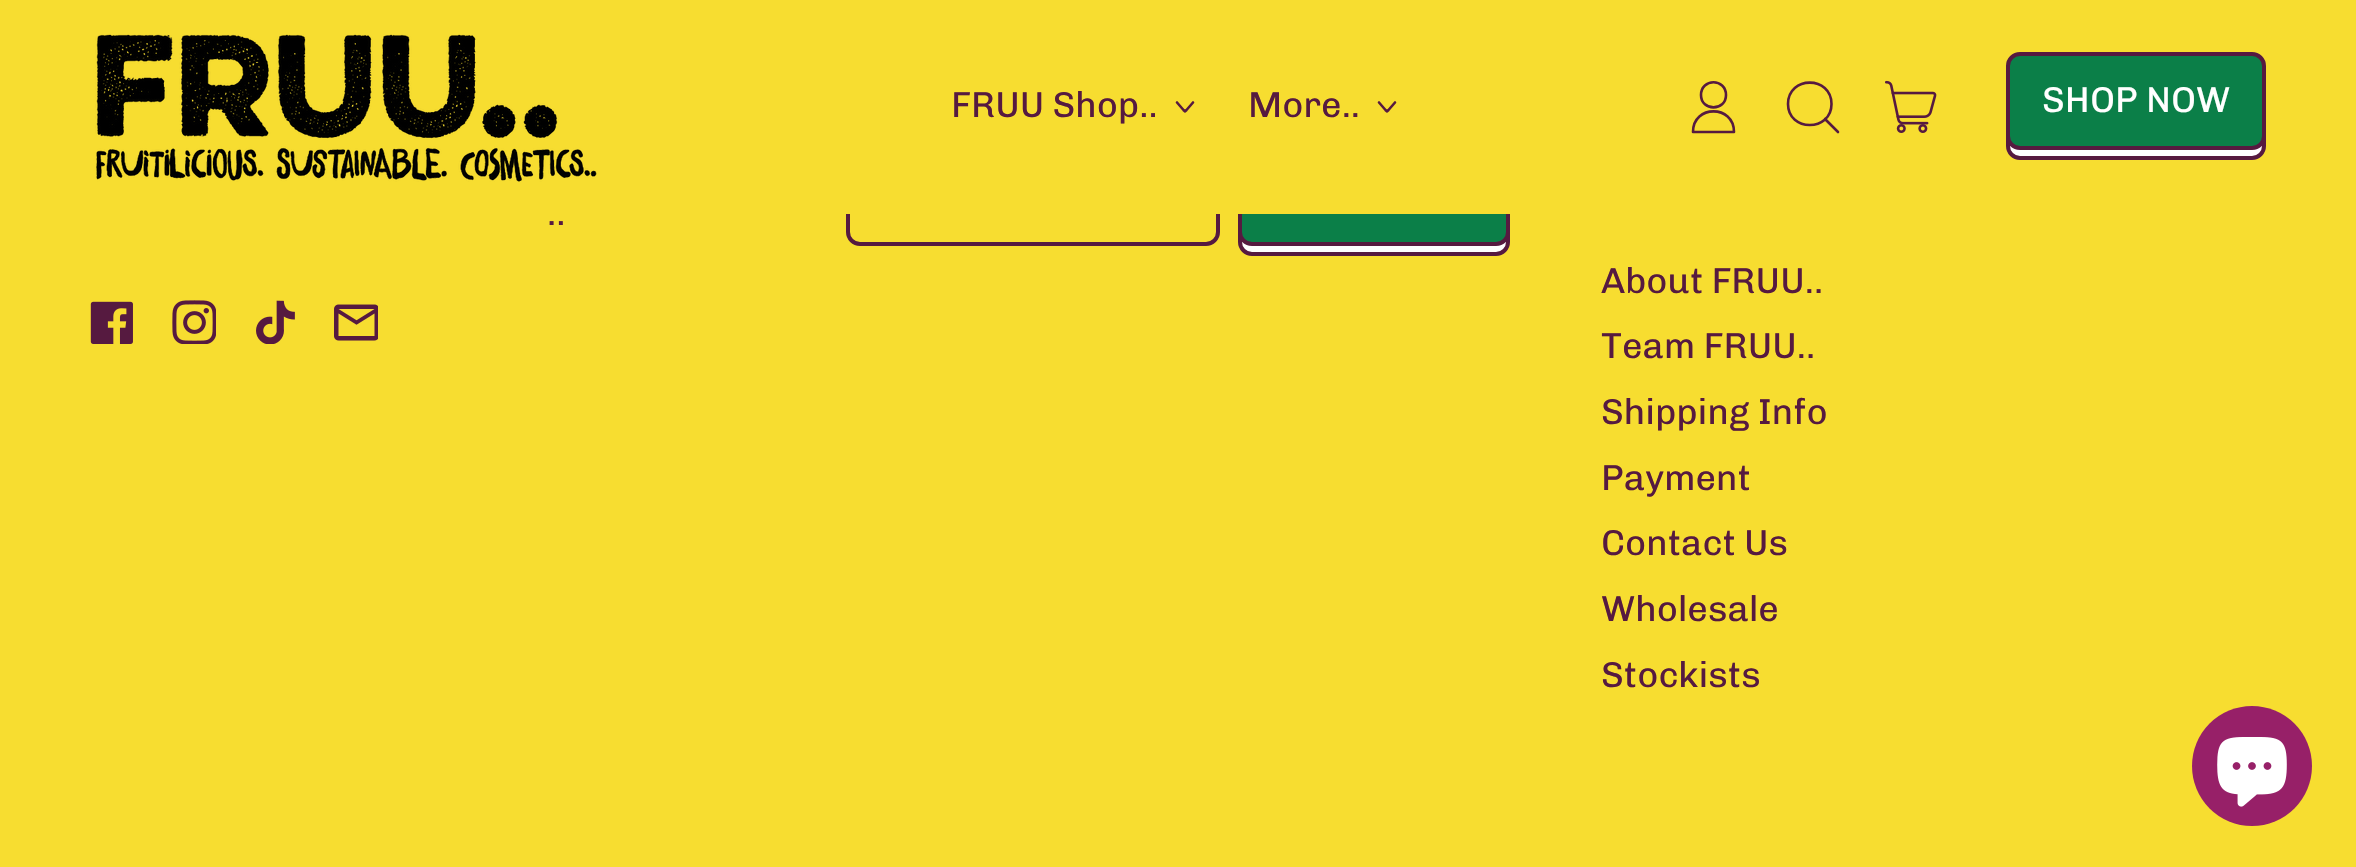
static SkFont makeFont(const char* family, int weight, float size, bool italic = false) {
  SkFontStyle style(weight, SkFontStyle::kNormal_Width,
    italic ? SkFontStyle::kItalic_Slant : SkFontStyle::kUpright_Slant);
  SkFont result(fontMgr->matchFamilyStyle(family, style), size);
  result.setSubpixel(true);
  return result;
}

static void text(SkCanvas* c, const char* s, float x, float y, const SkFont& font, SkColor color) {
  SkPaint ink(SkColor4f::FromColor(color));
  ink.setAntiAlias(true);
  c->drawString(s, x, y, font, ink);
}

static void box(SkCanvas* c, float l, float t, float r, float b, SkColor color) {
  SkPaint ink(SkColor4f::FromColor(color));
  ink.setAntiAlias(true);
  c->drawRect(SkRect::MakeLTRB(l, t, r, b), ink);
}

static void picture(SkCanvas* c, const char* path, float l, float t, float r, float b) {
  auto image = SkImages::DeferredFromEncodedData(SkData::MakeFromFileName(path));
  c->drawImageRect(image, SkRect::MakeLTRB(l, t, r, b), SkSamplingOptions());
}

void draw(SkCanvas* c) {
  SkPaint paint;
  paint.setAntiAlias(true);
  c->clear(0xfff7dd30);
  paint.setStyle(SkPaint::kStroke_Style);
  paint.setStrokeWidth(4);
  paint.setColor(0xff561a40);
  c->drawRoundRect(SkRect::MakeLTRB(848, 150, 1218, 244), 12, 12, paint);
  paint.setStyle(SkPaint::kFill_Style);
  paint.setColor(0xffffffff);
  c->drawRoundRect(SkRect::MakeLTRB(1240, 160, 1508, 254), 12, 12, paint);
  paint.setStyle(SkPaint::kStroke_Style);
  paint.setColor(0xff561a40);
  c->drawRoundRect(SkRect::MakeLTRB(1240, 160, 1508, 254), 12, 12, paint);
  paint.setStyle(SkPaint::kFill_Style);
  paint.setColor(0xff0b7f48);
  c->drawRoundRect(SkRect::MakeLTRB(1240, 150, 1508, 244), 12, 12, paint);
  paint.setStyle(SkPaint::kStroke_Style);
  paint.setColor(0xff561a40);
  c->drawRoundRect(SkRect::MakeLTRB(1240, 150, 1508, 244), 12, 12, paint);
  box(c, 846, 148, 1510, 214, 0xfff7dd30);
  picture(c, "img_01.png", 95, 34, 597, 182);
  SkFont face1 = makeFont("Chivo", 400, 36);
  text(c, "FRUU Shop..", 951, 117, face1, 0xff561a40);
  paint.setStrokeWidth(2.6f);
  paint.setStrokeCap(SkPaint::kRound_Cap);
  paint.setStrokeJoin(SkPaint::kRound_Join);
  c->drawPath(SkPathBuilder().moveTo(1177, 102.5f).lineTo(1183.5f, 110).cubicTo(1185.5f, 112, 1184.5f, 112, 1186.5f, 110).lineTo(1193, 102.5f).detach(), paint);
  text(c, "More..", 1248, 117, face1, 0xff561a40);
  c->drawPath(SkPathBuilder().moveTo(1379, 102.5f).lineTo(1385.5f, 110).cubicTo(1387.5f, 112, 1386.5f, 112, 1388.5f, 110).lineTo(1395, 102.5f).detach(), paint);
  c->drawPath(SkPathBuilder().moveTo(1701, 95).cubicTo(1701, 111.5f, 1726, 111.5f, 1726, 95).cubicTo(1726, 78, 1701, 78, 1701, 95).close().moveTo(1693, 132).cubicTo(1693, 104.5f, 1734, 104.5f, 1734, 132).close().detach(), paint);
  c->drawPath(SkPathBuilder().moveTo(1788, 104).cubicTo(1788, 132, 1831.5f, 132, 1831.5f, 104).cubicTo(1831.5f, 75.5f, 1788, 75.5f, 1788, 104).close().moveTo(1838, 132).lineTo(1825, 119).detach(), paint);
  picture(c, "img_02.png", 1885, 80, 1937, 133);
  paint.setStyle(SkPaint::kFill_Style);
  paint.setColor(0xffffffff);
  c->drawRoundRect(SkRect::MakeLTRB(2008, 64, 2264, 158), 12, 12, paint);
  paint.setStyle(SkPaint::kStroke_Style);
  paint.setStrokeWidth(4);
  paint.setStrokeCap(SkPaint::kButt_Cap);
  paint.setStrokeJoin(SkPaint::kMiter_Join);
  paint.setColor(0xff561a40);
  c->drawRoundRect(SkRect::MakeLTRB(2008, 64, 2264, 158), 12, 12, paint);
  paint.setStyle(SkPaint::kFill_Style);
  paint.setColor(0xff0b7f48);
  c->drawRoundRect(SkRect::MakeLTRB(2008, 54, 2264, 148), 12, 12, paint);
  paint.setStyle(SkPaint::kStroke_Style);
  paint.setColor(0xff561a40);
  c->drawRoundRect(SkRect::MakeLTRB(2008, 54, 2264, 148), 12, 12, paint);
  text(c, "SHOP NOW", 2042, 112, face1, 0xffffffff);
  text(c, "..", 547, 225, face1, 0xff561a40);
  picture(c, "img_03.png", 90, 301, 133, 344);
  picture(c, "img_04.png", 172, 300, 216, 344);
  picture(c, "img_05.png", 256, 300, 295, 344);
  picture(c, "img_06.png", 334, 304, 378, 341);
  text(c, "About FRUU..", 1601, 293, face1, 0xff561a40);
  text(c, "Team FRUU..", 1601, 358, face1, 0xff561a40);
  text(c, "Shipping Info", 1601, 424, face1, 0xff561a40);
  text(c, "Payment", 1601, 490, face1, 0xff561a40);
  text(c, "Contact Us", 1601, 555, face1, 0xff561a40);
  text(c, "Wholesale", 1601, 621, face1, 0xff561a40);
  text(c, "Stockists", 1601, 687, face1, 0xff561a40);
  paint.setStyle(SkPaint::kFill_Style);
  paint.setColor(0xff972068);
  c->drawCircle(2252, 766, 60, paint);
  picture(c, "img_07.png", 2217, 737, 2287, 807);
}
